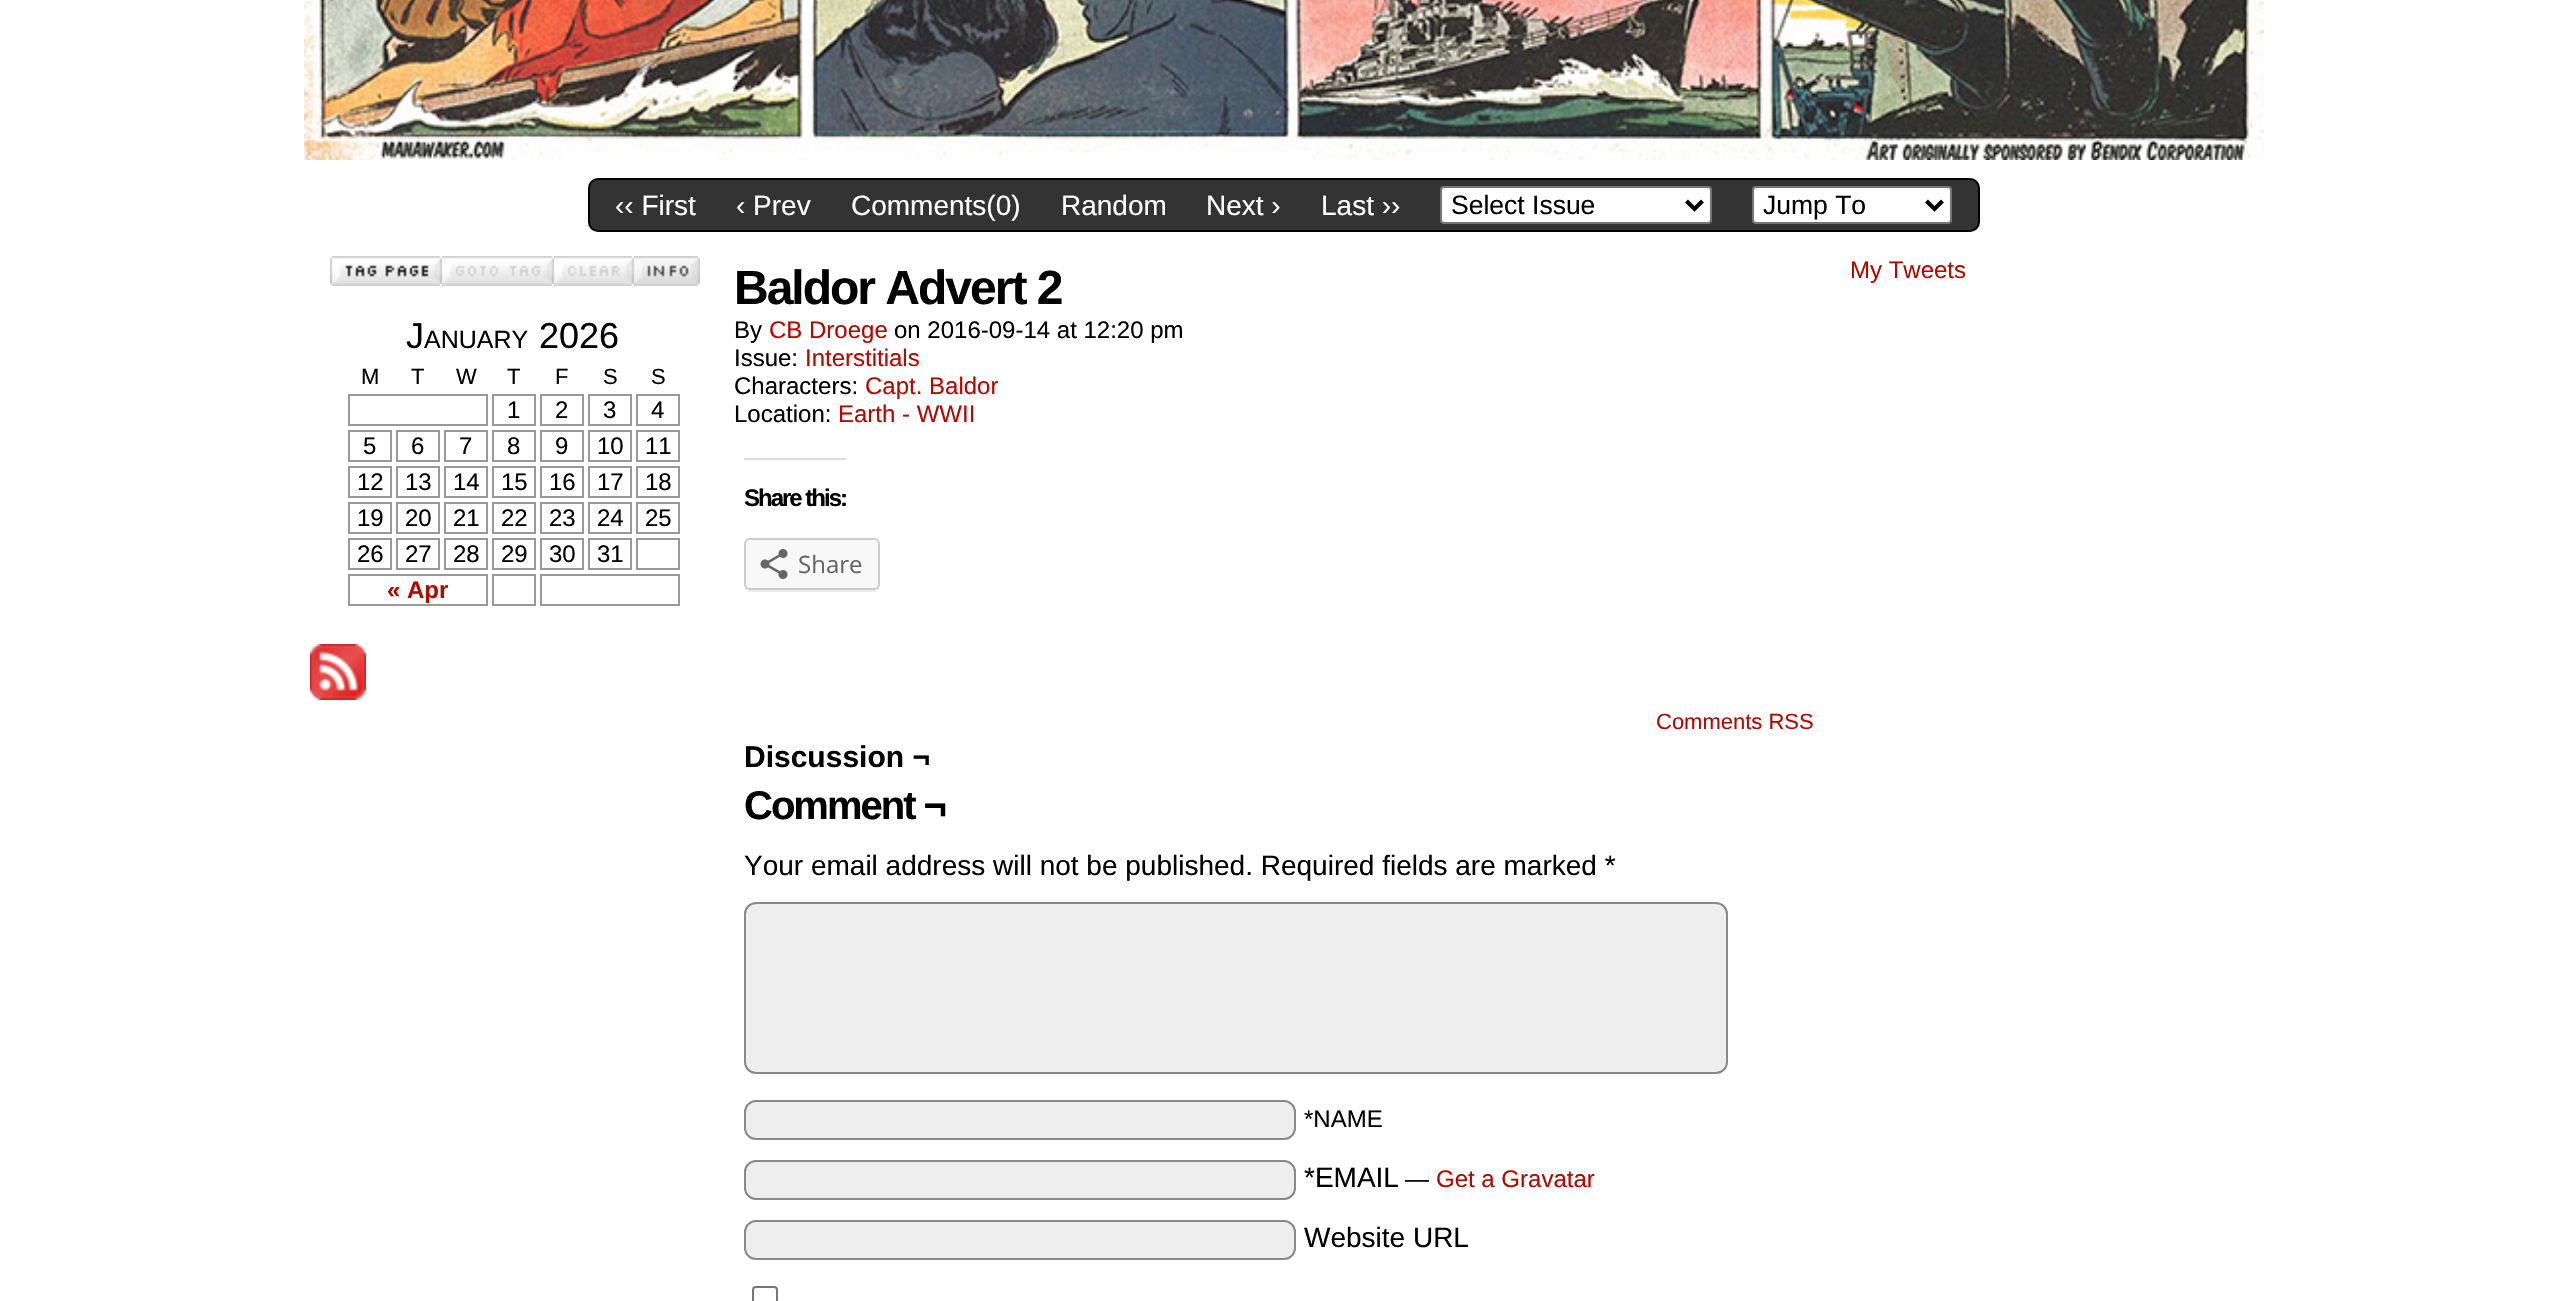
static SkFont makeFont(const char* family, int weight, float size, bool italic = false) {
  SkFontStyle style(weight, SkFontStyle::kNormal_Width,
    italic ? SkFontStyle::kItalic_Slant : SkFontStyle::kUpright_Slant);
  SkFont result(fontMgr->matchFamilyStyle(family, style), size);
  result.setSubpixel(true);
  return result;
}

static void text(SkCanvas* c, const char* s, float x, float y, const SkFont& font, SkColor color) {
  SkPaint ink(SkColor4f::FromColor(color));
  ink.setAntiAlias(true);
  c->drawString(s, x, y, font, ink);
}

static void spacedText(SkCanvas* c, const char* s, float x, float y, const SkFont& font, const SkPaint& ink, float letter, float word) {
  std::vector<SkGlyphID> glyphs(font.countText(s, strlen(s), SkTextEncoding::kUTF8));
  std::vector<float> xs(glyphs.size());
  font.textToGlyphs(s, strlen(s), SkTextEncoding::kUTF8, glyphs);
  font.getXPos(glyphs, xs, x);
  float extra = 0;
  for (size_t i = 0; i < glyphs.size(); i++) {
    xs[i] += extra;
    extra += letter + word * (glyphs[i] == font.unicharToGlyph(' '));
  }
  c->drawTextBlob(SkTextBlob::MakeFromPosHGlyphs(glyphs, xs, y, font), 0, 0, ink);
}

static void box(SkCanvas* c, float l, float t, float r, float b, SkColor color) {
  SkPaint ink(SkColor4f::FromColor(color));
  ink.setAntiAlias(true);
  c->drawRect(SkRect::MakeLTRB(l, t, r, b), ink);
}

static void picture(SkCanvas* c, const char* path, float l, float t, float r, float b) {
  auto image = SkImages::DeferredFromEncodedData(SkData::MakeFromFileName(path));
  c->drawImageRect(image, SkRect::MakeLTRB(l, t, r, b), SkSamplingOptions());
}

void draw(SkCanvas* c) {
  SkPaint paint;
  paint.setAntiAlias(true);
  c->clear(0xffffffff);
  picture(c, "img_01.png", 304, 0, 2264, 160);
  paint.setColor(0xff333333);
  c->drawRoundRect(SkRect::MakeLTRB(589, 179, 1979, 231), 9, 9, paint);
  paint.setStyle(SkPaint::kStroke_Style);
  paint.setStrokeWidth(2);
  paint.setColor(0xff000000);
  c->drawRoundRect(SkRect::MakeLTRB(589, 179, 1979, 231), 9, 9, paint);
  SkFont face1 = makeFont("Liberation Sans", 400, 28);
  text(c, "‹‹ First", 615, 215, face1, 0xffffffff);
  text(c, "‹ Prev", 736, 215, face1, 0xffffffff);
  text(c, "Comments(0)", 851, 215, face1, 0xffffffff);
  text(c, "Random", 1061, 215, face1, 0xffffffff);
  text(c, "Next ›", 1206, 215, face1, 0xffffffff);
  text(c, "Last ››", 1321, 215, face1, 0xffffffff);
  paint.setStyle(SkPaint::kFill_Style);
  paint.setColor(0xffffffff);
  c->drawRoundRect(SkRect::MakeLTRB(1441, 187, 1711, 223), 3, 3, paint);
  paint.setStyle(SkPaint::kStroke_Style);
  paint.setColor(0xff767676);
  c->drawRoundRect(SkRect::MakeLTRB(1441, 187, 1711, 223), 3, 3, paint);
  paint.setStrokeWidth(4);
  paint.setColor(0xff000000);
  c->drawPath(SkPathBuilder().moveTo(1686.5f, 201).lineTo(1694.5f, 209).lineTo(1702.5f, 201).detach(), paint);
  SkFont face2 = makeFont("Liberation Sans", 400, 26.5f);
  text(c, "Select Issue", 1451, 214, face2, 0xff000000);
  paint.setStyle(SkPaint::kFill_Style);
  paint.setColor(0xffffffff);
  c->drawRoundRect(SkRect::MakeLTRB(1753, 187, 1951, 223), 3, 3, paint);
  paint.setStyle(SkPaint::kStroke_Style);
  paint.setStrokeWidth(2);
  paint.setColor(0xff767676);
  c->drawRoundRect(SkRect::MakeLTRB(1753, 187, 1951, 223), 3, 3, paint);
  paint.setStrokeWidth(4);
  paint.setColor(0xff000000);
  c->drawPath(SkPathBuilder().moveTo(1926.5f, 201).lineTo(1934.5f, 209).lineTo(1942.5f, 201).detach(), paint);
  text(c, "Jump To", 1763, 214, face2, 0xff000000);
  picture(c, "img_02.png", 330, 256, 442, 286);
  picture(c, "img_03.png", 442, 256, 554, 286);
  picture(c, "img_04.png", 554, 256, 634, 286);
  picture(c, "img_05.png", 634, 256, 700, 286);
  SkFont face3 = makeFont("Liberation Sans", 400, 36);
  text(c, "J", 406, 348, face3, 0xff000000);
  SkFont face4 = makeFont("Liberation Sans", 400, 25);
  text(c, "ANUARY", 424, 348, face4, 0xff000000);
  text(c, "2026", 539, 348, face3, 0xff000000);
  SkFont face5 = makeFont("Liberation Sans", 400, 22);
  text(c, "M", 361, 384, face5, 0xff000000);
  text(c, "T", 411, 384, face5, 0xff000000);
  text(c, "W", 456, 384, face5, 0xff000000);
  text(c, "T", 507, 384, face5, 0xff000000);
  text(c, "F", 555, 384, face5, 0xff000000);
  text(c, "S", 603, 384, face5, 0xff000000);
  text(c, "S", 651, 384, face5, 0xff000000);
  paint.setStrokeWidth(2);
  paint.setColor(0xff999999);
  c->drawRect(SkRect::MakeLTRB(349, 395, 487, 425), paint);
  c->drawRect(SkRect::MakeLTRB(493, 395, 535, 425), paint);
  SkFont face6 = makeFont("Liberation Sans", 400, 24);
  text(c, "1", 507, 418, face6, 0xff000000);
  c->drawRect(SkRect::MakeLTRB(541, 395, 583, 425), paint);
  text(c, "2", 555, 418, face6, 0xff000000);
  c->drawRect(SkRect::MakeLTRB(589, 395, 631, 425), paint);
  text(c, "3", 603, 418, face6, 0xff000000);
  c->drawRect(SkRect::MakeLTRB(637, 395, 679, 425), paint);
  text(c, "4", 651, 418, face6, 0xff000000);
  c->drawRect(SkRect::MakeLTRB(349, 431, 391, 461), paint);
  text(c, "5", 363, 454, face6, 0xff000000);
  c->drawRect(SkRect::MakeLTRB(397, 431, 439, 461), paint);
  text(c, "6", 411, 454, face6, 0xff000000);
  c->drawRect(SkRect::MakeLTRB(445, 431, 487, 461), paint);
  text(c, "7", 459, 454, face6, 0xff000000);
  c->drawRect(SkRect::MakeLTRB(493, 431, 535, 461), paint);
  text(c, "8", 507, 454, face6, 0xff000000);
  c->drawRect(SkRect::MakeLTRB(541, 431, 583, 461), paint);
  text(c, "9", 555, 454, face6, 0xff000000);
  c->drawRect(SkRect::MakeLTRB(589, 431, 631, 461), paint);
  text(c, "10", 597, 454, face6, 0xff000000);
  c->drawRect(SkRect::MakeLTRB(637, 431, 679, 461), paint);
  text(c, "11", 645, 454, face6, 0xff000000);
  c->drawRect(SkRect::MakeLTRB(349, 467, 391, 497), paint);
  text(c, "12", 357, 490, face6, 0xff000000);
  c->drawRect(SkRect::MakeLTRB(397, 467, 439, 497), paint);
  text(c, "13", 405, 490, face6, 0xff000000);
  c->drawRect(SkRect::MakeLTRB(445, 467, 487, 497), paint);
  text(c, "14", 453, 490, face6, 0xff000000);
  c->drawRect(SkRect::MakeLTRB(493, 467, 535, 497), paint);
  text(c, "15", 501, 490, face6, 0xff000000);
  c->drawRect(SkRect::MakeLTRB(541, 467, 583, 497), paint);
  text(c, "16", 549, 490, face6, 0xff000000);
  c->drawRect(SkRect::MakeLTRB(589, 467, 631, 497), paint);
  text(c, "17", 597, 490, face6, 0xff000000);
  c->drawRect(SkRect::MakeLTRB(637, 467, 679, 497), paint);
  text(c, "18", 645, 490, face6, 0xff000000);
  c->drawRect(SkRect::MakeLTRB(349, 503, 391, 533), paint);
  text(c, "19", 357, 526, face6, 0xff000000);
  c->drawRect(SkRect::MakeLTRB(397, 503, 439, 533), paint);
  text(c, "20", 405, 526, face6, 0xff000000);
  c->drawRect(SkRect::MakeLTRB(445, 503, 487, 533), paint);
  text(c, "21", 453, 526, face6, 0xff000000);
  c->drawRect(SkRect::MakeLTRB(493, 503, 535, 533), paint);
  text(c, "22", 501, 526, face6, 0xff000000);
  c->drawRect(SkRect::MakeLTRB(541, 503, 583, 533), paint);
  text(c, "23", 549, 526, face6, 0xff000000);
  c->drawRect(SkRect::MakeLTRB(589, 503, 631, 533), paint);
  text(c, "24", 597, 526, face6, 0xff000000);
  c->drawRect(SkRect::MakeLTRB(637, 503, 679, 533), paint);
  text(c, "25", 645, 526, face6, 0xff000000);
  c->drawRect(SkRect::MakeLTRB(349, 539, 391, 569), paint);
  text(c, "26", 357, 562, face6, 0xff000000);
  c->drawRect(SkRect::MakeLTRB(397, 539, 439, 569), paint);
  text(c, "27", 405, 562, face6, 0xff000000);
  c->drawRect(SkRect::MakeLTRB(445, 539, 487, 569), paint);
  text(c, "28", 453, 562, face6, 0xff000000);
  c->drawRect(SkRect::MakeLTRB(493, 539, 535, 569), paint);
  text(c, "29", 501, 562, face6, 0xff000000);
  c->drawRect(SkRect::MakeLTRB(541, 539, 583, 569), paint);
  text(c, "30", 549, 562, face6, 0xff000000);
  c->drawRect(SkRect::MakeLTRB(589, 539, 631, 569), paint);
  text(c, "31", 597, 562, face6, 0xff000000);
  c->drawRect(SkRect::MakeLTRB(637, 539, 679, 569), paint);
  c->drawRect(SkRect::MakeLTRB(349, 575, 487, 605), paint);
  SkFont face7 = makeFont("Liberation Sans", 700, 24);
  text(c, "« Apr", 387, 598, face7, 0xffb00b00);
  c->drawRect(SkRect::MakeLTRB(493, 575, 535, 605), paint);
  c->drawRect(SkRect::MakeLTRB(541, 575, 679, 605), paint);
  picture(c, "img_06.png", 310, 644, 366, 700);
  SkFont face8 = makeFont("Liberation Sans", 700, 48);
  paint.setStyle(SkPaint::kFill_Style);
  paint.setColor(0xff000000);
  spacedText(c, "Baldor Advert 2", 734, 304, face8, paint, -2, 0);
  text(c, "By", 734, 338, face6, 0xff000000);
  text(c, "CB Droege", 769, 338, face6, 0xffb00b00);
  text(c, "on 2016-09-14 at 12:20 pm", 894, 338, face6, 0xff000000);
  text(c, "Issue:", 734, 366, face6, 0xff000000);
  text(c, "Interstitials", 805, 366, face6, 0xffb00b00);
  text(c, "Characters:", 734, 394, face6, 0xff000000);
  text(c, "Capt. Baldor", 865, 394, face6, 0xffb00b00);
  text(c, "Location:", 734, 422, face6, 0xff000000);
  text(c, "Earth - WWII", 838, 422, face6, 0xffb00b00);
  box(c, 744, 458, 846, 460, 0xffdcdcde);
  spacedText(c, "Share this:", 744, 506, face7, paint, -2, 0);
  paint.setColor(0xffebebeb);
  c->drawPath(SkPathBuilder().moveTo(744, 584).lineTo(744, 586).cubicTo(744, 589, 747, 592, 750, 592).lineTo(874, 592).cubicTo(877, 592, 880, 589, 880, 586).lineTo(880, 584).cubicTo(880, 587, 877, 590, 874, 590).lineTo(750, 590).cubicTo(747, 590, 744, 587, 744, 584).close().detach(), paint);
  paint.setColor(0xfff8f8f8);
  c->drawRoundRect(SkRect::MakeLTRB(745, 539, 879, 589), 5, 5, paint);
  paint.setStyle(SkPaint::kStroke_Style);
  paint.setColor(0xffcccccc);
  c->drawRoundRect(SkRect::MakeLTRB(745, 539, 879, 589), 5, 5, paint);
  picture(c, "img_07.png", 760, 549, 788, 579);
  SkFont face9 = makeFont("Open Sans", 400, 24);
  text(c, "Share", 798, 573, face9, 0xff656565);
  text(c, "Comments RSS", 1656, 729, face5, 0xffb00b00);
  SkFont face10 = makeFont("Liberation Sans", 700, 30);
  text(c, "Discussion ¬", 744, 767, face10, 0xff000000);
  SkFont face11 = makeFont("Liberation Sans", 700, 40);
  paint.setStyle(SkPaint::kFill_Style);
  paint.setColor(0xff000000);
  spacedText(c, "Comment ¬", 744, 819, face11, paint, -2, 0);
  text(c, "Your email address will not be published. Required fields are marked *", 744, 875, face1, 0xff000000);
  paint.setColor(0xffeeeeee);
  c->drawRoundRect(SkRect::MakeLTRB(745, 903, 1727, 1073), 11, 11, paint);
  paint.setStyle(SkPaint::kStroke_Style);
  paint.setColor(0xff888888);
  c->drawRoundRect(SkRect::MakeLTRB(745, 903, 1727, 1073), 11, 11, paint);
  paint.setStyle(SkPaint::kFill_Style);
  paint.setColor(0xffeeeeee);
  c->drawRoundRect(SkRect::MakeLTRB(745, 1101, 1295, 1139), 11, 11, paint);
  paint.setStyle(SkPaint::kStroke_Style);
  paint.setColor(0xff888888);
  c->drawRoundRect(SkRect::MakeLTRB(745, 1101, 1295, 1139), 11, 11, paint);
  text(c, "*NAME", 1304, 1127, face6, 0xff000000);
  paint.setStyle(SkPaint::kFill_Style);
  paint.setColor(0xffeeeeee);
  c->drawRoundRect(SkRect::MakeLTRB(745, 1161, 1295, 1199), 11, 11, paint);
  paint.setStyle(SkPaint::kStroke_Style);
  paint.setColor(0xff888888);
  c->drawRoundRect(SkRect::MakeLTRB(745, 1161, 1295, 1199), 11, 11, paint);
  text(c, "*EMAIL", 1304, 1187, face1, 0xff000000);
  text(c, "—", 1405, 1187, face6, 0xff000000);
  text(c, "Get a Gravatar", 1436, 1187, face6, 0xffb00b00);
  paint.setStyle(SkPaint::kFill_Style);
  paint.setColor(0xffeeeeee);
  c->drawRoundRect(SkRect::MakeLTRB(745, 1221, 1295, 1259), 11, 11, paint);
  paint.setStyle(SkPaint::kStroke_Style);
  paint.setColor(0xff888888);
  c->drawRoundRect(SkRect::MakeLTRB(745, 1221, 1295, 1259), 11, 11, paint);
  text(c, "Website URL", 1304, 1247, face1, 0xff000000);
  paint.setColor(0xff767676);
  c->drawRoundRect(SkRect::MakeLTRB(753, 1287, 777, 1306), 3, 3, paint);
  text(c, "My Tweets", 1850, 278, face6, 0xffb00b00);
}
